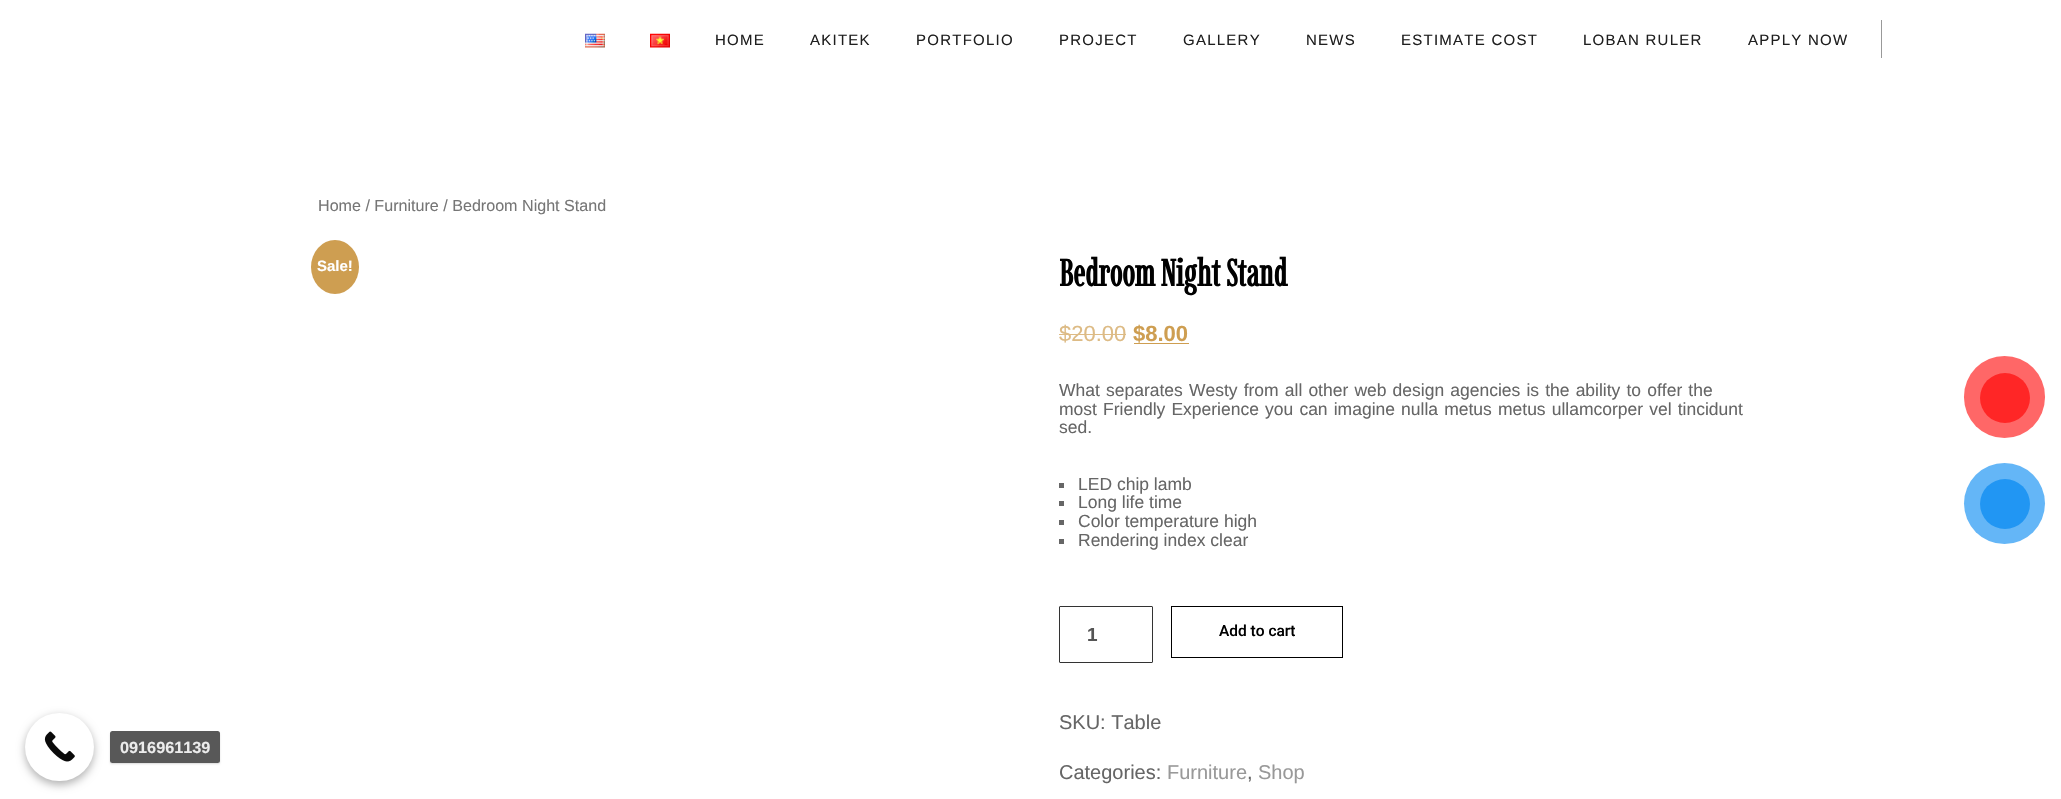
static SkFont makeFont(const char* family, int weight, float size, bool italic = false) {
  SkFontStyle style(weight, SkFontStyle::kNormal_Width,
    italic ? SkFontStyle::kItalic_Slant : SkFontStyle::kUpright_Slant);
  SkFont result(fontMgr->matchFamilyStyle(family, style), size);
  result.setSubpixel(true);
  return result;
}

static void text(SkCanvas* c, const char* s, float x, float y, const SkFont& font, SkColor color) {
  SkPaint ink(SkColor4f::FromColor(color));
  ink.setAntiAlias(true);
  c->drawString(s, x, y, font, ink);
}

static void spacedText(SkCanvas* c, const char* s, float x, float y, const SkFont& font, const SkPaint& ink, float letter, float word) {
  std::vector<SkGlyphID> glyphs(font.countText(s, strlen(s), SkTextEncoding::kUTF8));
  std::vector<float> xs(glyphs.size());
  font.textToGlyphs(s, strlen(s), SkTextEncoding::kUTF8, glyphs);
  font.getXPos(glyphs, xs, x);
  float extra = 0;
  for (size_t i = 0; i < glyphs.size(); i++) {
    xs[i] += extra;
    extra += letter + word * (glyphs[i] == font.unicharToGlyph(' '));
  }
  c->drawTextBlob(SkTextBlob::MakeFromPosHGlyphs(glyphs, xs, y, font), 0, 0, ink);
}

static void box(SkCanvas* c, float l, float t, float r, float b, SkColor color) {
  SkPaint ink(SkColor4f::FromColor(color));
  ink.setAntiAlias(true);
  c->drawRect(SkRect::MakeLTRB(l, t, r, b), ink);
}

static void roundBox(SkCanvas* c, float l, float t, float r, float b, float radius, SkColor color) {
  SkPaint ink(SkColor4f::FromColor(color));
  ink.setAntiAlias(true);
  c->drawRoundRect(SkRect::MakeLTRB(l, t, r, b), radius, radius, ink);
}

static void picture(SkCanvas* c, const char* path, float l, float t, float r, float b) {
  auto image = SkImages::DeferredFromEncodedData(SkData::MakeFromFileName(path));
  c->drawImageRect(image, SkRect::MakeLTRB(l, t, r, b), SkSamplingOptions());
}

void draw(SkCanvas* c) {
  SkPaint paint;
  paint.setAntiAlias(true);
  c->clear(0xffffffff);
  picture(c, "img_01.png", 585, 33, 605, 48);
  picture(c, "img_02.png", 650, 33, 670, 48);
  SkFont face1 = makeFont("Liberation Sans", 400, 15);
  paint.setColor(0xff1f1f1f);
  spacedText(c, "HOME", 715, 45, face1, paint, 1.25f, 0);
  spacedText(c, "AKITEK", 810, 45, face1, paint, 1.25f, 0);
  spacedText(c, "PORTFOLIO", 916, 45, face1, paint, 1.25f, 0);
  spacedText(c, "PROJECT", 1059, 45, face1, paint, 1.25f, 0);
  spacedText(c, "GALLERY", 1183, 45, face1, paint, 1.25f, 0);
  spacedText(c, "NEWS", 1306, 45, face1, paint, 1.25f, 0);
  spacedText(c, "ESTIMATE COST", 1401, 45, face1, paint, 1.25f, 0);
  spacedText(c, "LOBAN RULER", 1583, 45, face1, paint, 1.25f, 0);
  spacedText(c, "APPLY NOW", 1748, 45, face1, paint, 1.25f, 0);
  box(c, 1881, 20, 1882, 58, 0xff999999);
  SkFont face2 = makeFont("Liberation Sans", 400, 16.1f);
  text(c, "Home / Furniture / Bedroom Night Stand", 318, 211, face2, 0xff767676);
  paint.setColor(0xffce9e51);
  c->drawOval(SkRect::MakeLTRB(311, 240, 359, 294), paint);
  SkFont face3 = makeFont("Liberation Sans", 700, 15);
  text(c, "Sale!", 317, 271, face3, 0xffffffff);
  SkFont face4 = makeFont("Imbue", 700, 37.5f);
  text(c, "Bedroom Night Stand", 1059, 286, face4, 0xff000000);
  SkFont face5 = makeFont("Liberation Sans", 400, 22);
  text(c, "$20.00", 1059, 341, face5, 0xffddbb85);
  box(c, 1059, 334, 1126, 335, 0xffddbb85);
  SkFont face6 = makeFont("Liberation Sans", 700, 22);
  text(c, "$8.00", 1133, 341, face6, 0xffce9e51);
  box(c, 1134, 343, 1189, 344, 0xffce9e51);
  SkFont face7 = makeFont("Liberation Sans", 400, 17.5f);
  paint.setColor(0xff666666);
  spacedText(c, "What separates Westy from all other web design agencies is the ability to offer the", 1059, 396, face7, paint, 0, 1.25f);
  spacedText(c, "most Friendly Experience you can imagine nulla metus metus ullamcorper vel tincidunt", 1059, 415, face7, paint, 0, 1.25f);
  text(c, "sed.", 1059, 433, face7, 0xff666666);
  box(c, 1059, 483, 1064, 488, 0xff666666);
  text(c, "LED chip lamb", 1078, 490, face7, 0xff666666);
  box(c, 1059, 501, 1064, 506, 0xff666666);
  text(c, "Long life time", 1078, 508, face7, 0xff666666);
  box(c, 1059, 520, 1064, 525, 0xff666666);
  text(c, "Color temperature high", 1078, 527, face7, 0xff666666);
  box(c, 1059, 539, 1064, 544, 0xff666666);
  text(c, "Rendering index clear", 1078, 546, face7, 0xff666666);
  paint.setStyle(SkPaint::kStroke_Style);
  paint.setStrokeWidth(1);
  paint.setColor(0xff333333);
  c->drawRoundRect(SkRect::MakeLTRB(1059.5f, 606.5f, 1152.5f, 662.5f), 0.5f, 0.5f, paint);
  SkFont face8 = makeFont("Liberation Sans", 700, 19);
  text(c, "1", 1087, 641, face8, 0xff555555);
  paint.setColor(0xff000000);
  c->drawRect(SkRect::MakeLTRB(1171.5f, 606.5f, 1342.5f, 657.5f), paint);
  SkFont face9 = makeFont("Roboto", 500, 15.5f);
  text(c, "Add to cart", 1219, 636, face9, 0xff000000);
  SkFont face10 = makeFont("Liberation Sans", 400, 20);
  text(c, "SKU: Table", 1059, 729, face10, 0xff666666);
  text(c, "Categories:", 1059, 779, face10, 0xff666666);
  text(c, "Furniture", 1167, 779, face10, 0xff999999);
  text(c, ",", 1247, 779, face10, 0xff666666);
  text(c, "Shop", 1258, 779, face10, 0xff999999);
  roundBox(c, 1964, 356, 2045, 438, 40.5f, 0xffff6767);
  paint.setStyle(SkPaint::kFill_Style);
  paint.setColor(0xffff2626);
  c->drawCircle(2005, 398, 25, paint);
  paint.setColor(0xff64b6f7);
  c->drawCircle(2004.5f, 503.5f, 40.5f, paint);
  paint.setColor(0xff2196f3);
  c->drawCircle(2005, 504, 25, paint);
  paint.setColor(0x4d000000);
  paint.setMaskFilter(SkMaskFilter::MakeBlur(kNormal_SkBlurStyle, 4));
  c->drawRoundRect(SkRect::MakeLTRB(25, 716, 94, 785), 34.5f, 34.5f, paint);
  paint.setMaskFilter(nullptr);
  roundBox(c, 25, 713, 94, 781, 34, 0xffffffff);
  picture(c, "img_03.png", 44, 731, 75, 762);
  c->save();
  c->clipPath(SkPathBuilder(SkPathFillType::kEvenOdd).moveTo(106, 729).lineTo(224, 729).lineTo(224, 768).lineTo(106, 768).close().moveTo(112.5f, 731).lineTo(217.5f, 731).cubicTo(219, 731, 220, 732, 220, 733.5f).lineTo(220, 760.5f).cubicTo(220, 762, 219, 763, 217.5f, 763).lineTo(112.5f, 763).cubicTo(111, 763, 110, 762, 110, 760.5f).lineTo(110, 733.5f).cubicTo(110, 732, 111, 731, 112.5f, 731).close().detach(), true);
  paint.setColor(0x26000000);
  paint.setMaskFilter(SkMaskFilter::MakeBlur(kNormal_SkBlurStyle, 1));
  c->drawRoundRect(SkRect::MakeLTRB(110, 733, 220, 764), 2.5f, 2.5f, paint);
  paint.setMaskFilter(nullptr);
  c->restore();
  roundBox(c, 110, 731, 220, 763, 2.5f, 0xe6464646);
  SkFont face11 = makeFont("Liberation Sans", 700, 16.25f);
  text(c, "0916961139", 120, 753, face11, 0xffececec);
}
